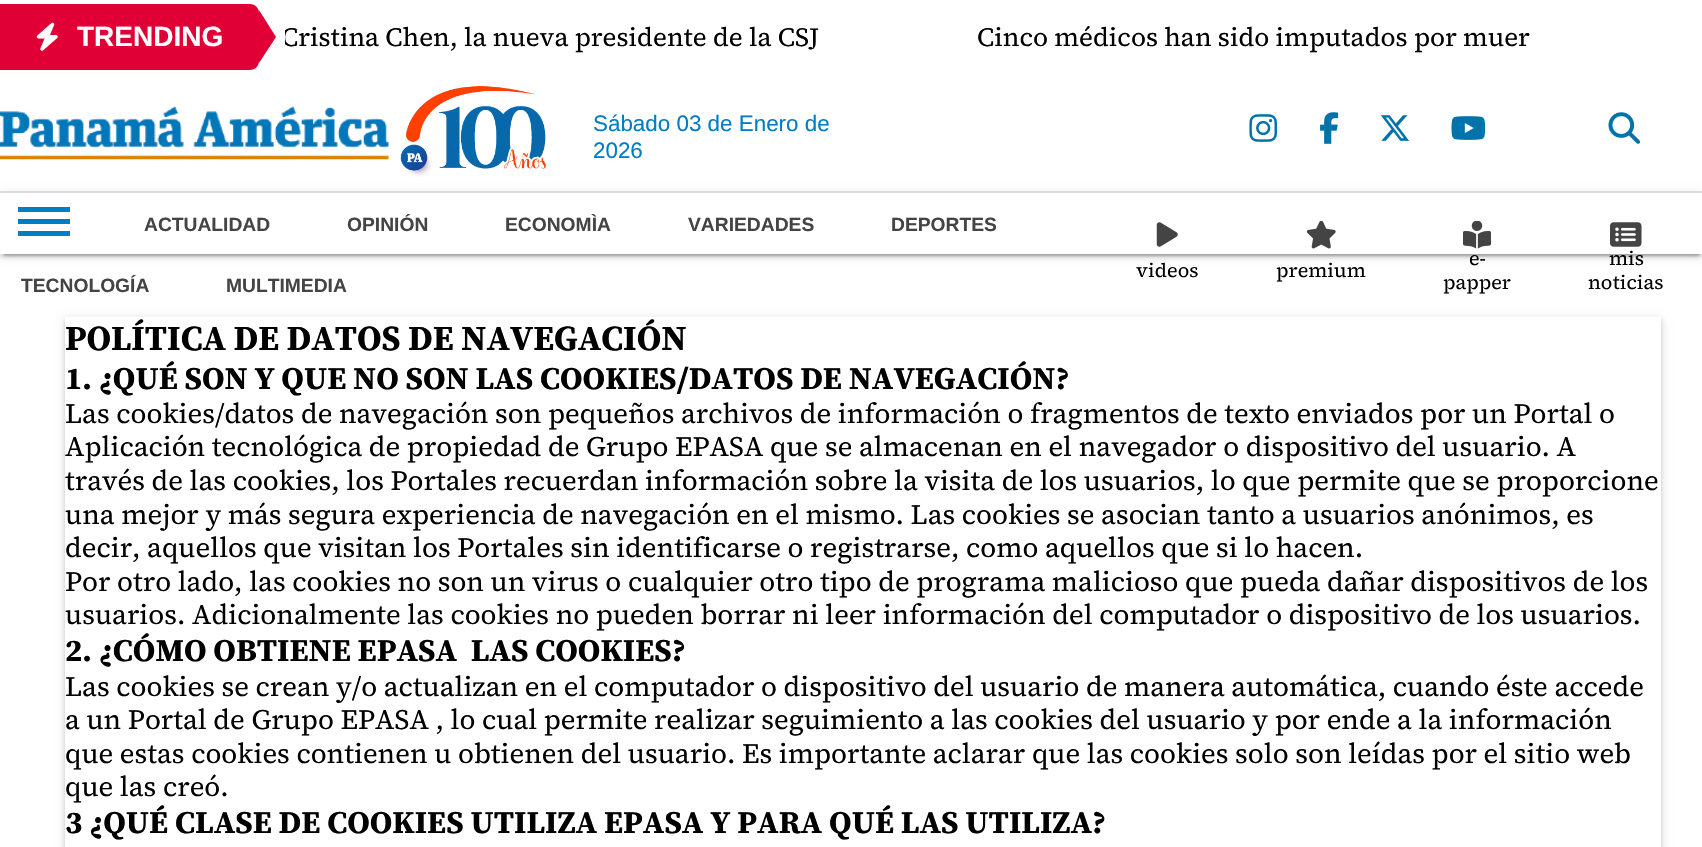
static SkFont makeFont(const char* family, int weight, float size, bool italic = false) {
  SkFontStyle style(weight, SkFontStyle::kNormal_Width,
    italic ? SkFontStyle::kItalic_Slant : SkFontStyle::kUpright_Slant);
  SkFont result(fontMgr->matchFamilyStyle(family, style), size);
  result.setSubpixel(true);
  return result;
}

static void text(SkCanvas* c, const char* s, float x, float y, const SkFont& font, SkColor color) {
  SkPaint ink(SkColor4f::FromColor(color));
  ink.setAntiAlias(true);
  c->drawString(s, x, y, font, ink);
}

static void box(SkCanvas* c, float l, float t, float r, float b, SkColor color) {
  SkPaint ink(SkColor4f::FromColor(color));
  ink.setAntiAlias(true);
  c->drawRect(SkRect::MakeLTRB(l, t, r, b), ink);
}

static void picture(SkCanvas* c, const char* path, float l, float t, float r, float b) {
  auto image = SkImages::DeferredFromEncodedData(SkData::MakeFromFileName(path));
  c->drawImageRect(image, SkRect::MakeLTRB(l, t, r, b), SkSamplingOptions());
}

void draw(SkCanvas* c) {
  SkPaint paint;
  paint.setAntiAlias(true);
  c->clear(0xffffffff);
  paint.setColor(0xffe00036);
  c->drawPath(SkPathBuilder().moveTo(0, 4).lineTo(250, 4).cubicTo(255, 4, 259, 8, 259, 13).lineTo(259, 61).cubicTo(259, 66, 255, 70, 250, 70).lineTo(0, 70).close().detach(), paint);
  picture(c, "img_01.png", 36, 22, 58, 51);
  SkFont face1 = makeFont("Liberation Sans", 700, 28);
  text(c, "TRENDING", 77, 46, face1, 0xffffffff);
  c->drawPath(SkPathBuilder().moveTo(259, 63).lineTo(259, 10).lineTo(276, 37).close().detach(), paint);
  c->save();
  c->clipRect(SkRect::MakeLTRB(285, 11, 1531, 63));
  SkFont face2 = makeFont("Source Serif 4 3", 400, 26.25f);
  text(c, "Cristina Chen, la nueva presidente de la CSJ", 281, 46, face2, 0xff000000);
  c->restore();
  text(c, "Cinco médicos han sido imputados por muer", 977, 46, face2, 0xff000000);
  c->save();
  c->clipPath(SkPathBuilder(SkPathFillType::kEvenOdd).moveTo(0, 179).lineTo(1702, 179).lineTo(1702, 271).lineTo(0, 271).close().moveTo(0, 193).lineTo(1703, 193).lineTo(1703, 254).lineTo(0, 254).close().detach(), true);
  paint.setColor(0x1f000000);
  paint.setMaskFilter(SkMaskFilter::MakeBlur(kNormal_SkBlurStyle, 4.5f));
  c->drawRect(SkRect::MakeLTRB(0, 194, 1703, 256), paint);
  paint.setMaskFilter(nullptr);
  c->restore();
  c->save();
  c->clipPath(SkPathBuilder(SkPathFillType::kEvenOdd).moveTo(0, 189).lineTo(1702, 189).lineTo(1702, 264).lineTo(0, 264).close().moveTo(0, 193).lineTo(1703, 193).lineTo(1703, 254).lineTo(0, 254).close().detach(), true);
  paint.setColor(0x24000000);
  paint.setMaskFilter(SkMaskFilter::MakeBlur(kNormal_SkBlurStyle, 2));
  c->drawRect(SkRect::MakeLTRB(0, 196, 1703, 257), paint);
  paint.setMaskFilter(nullptr);
  c->restore();
  box(c, 0, 191, 1702, 193, 0xffdddddd);
  picture(c, "img_02.png", 0, 106, 389, 160);
  picture(c, "img_03.png", 400, 86, 546, 177);
  SkFont face3 = makeFont("Liberation Sans", 400, 22.4f);
  text(c, "Sábado 03 de Enero de", 593, 131, face3, 0xff007dc4);
  text(c, "2026", 593, 158, face3, 0xff007dc4);
  picture(c, "img_04.png", 1249, 114, 1277, 142);
  picture(c, "img_05.png", 1320, 112, 1339, 144);
  picture(c, "img_06.png", 1380, 115, 1409, 141);
  picture(c, "img_07.png", 1451, 116, 1486, 140);
  picture(c, "img_08.png", 1608, 112, 1640, 144);
  c->save();
  c->clipPath(SkPathBuilder(SkPathFillType::kEvenOdd).moveTo(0, 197).lineTo(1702, 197).lineTo(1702, 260).lineTo(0, 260).close().moveTo(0, 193).lineTo(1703, 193).lineTo(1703, 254).lineTo(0, 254).close().detach(), true);
  paint.setColor(0x33000000);
  paint.setMaskFilter(SkMaskFilter::MakeBlur(kNormal_SkBlurStyle, 1));
  c->drawRect(SkRect::MakeLTRB(4, 201, 1699, 256), paint);
  paint.setMaskFilter(nullptr);
  c->restore();
  box(c, 18, 207, 70, 212, 0xff007dc4);
  box(c, 18, 219, 70, 224, 0xff007dc4);
  box(c, 18, 231, 70, 236, 0xff007dc4);
  SkFont face4 = makeFont("Liberation Sans", 700, 19.25f);
  text(c, "ACTUALIDAD", 144, 231, face4, 0xff444444);
  text(c, "OPINIÓN", 347, 231, face4, 0xff444444);
  text(c, "ECONOMÌA", 505, 231, face4, 0xff444444);
  text(c, "VARIEDADES", 688, 231, face4, 0xff444444);
  text(c, "DEPORTES", 891, 231, face4, 0xff444444);
  text(c, "TECNOLOGÍA", 21, 292, face4, 0xff444444);
  text(c, "MULTIMEDIA", 226, 292, face4, 0xff444444);
  picture(c, "img_09.png", 1156, 222, 1178, 247);
  SkFont face5 = makeFont("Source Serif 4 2", 400, 19.5f);
  text(c, "videos", 1136, 277, face5, 0xff000000);
  picture(c, "img_10.png", 1306, 221, 1336, 249);
  text(c, "premium", 1276, 277, face5, 0xff000000);
  picture(c, "img_11.png", 1463, 221, 1491, 249);
  text(c, "e-", 1469, 265, face5, 0xff000000);
  text(c, "papper", 1443, 289, face5, 0xff000000);
  picture(c, "img_12.png", 1610, 222, 1642, 247);
  text(c, "mis", 1609, 265, face5, 0xff000000);
  text(c, "noticias", 1588, 289, face5, 0xff000000);
  c->save();
  c->clipPath(SkPathBuilder(SkPathFillType::kEvenOdd).moveTo(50, 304).lineTo(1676, 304).lineTo(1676, 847).lineTo(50, 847).close().moveTo(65, 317).lineTo(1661, 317).lineTo(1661, 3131).lineTo(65, 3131).close().detach(), true);
  paint.setColor(0x1f000000);
  paint.setMaskFilter(SkMaskFilter::MakeBlur(kNormal_SkBlurStyle, 4.5f));
  c->drawRect(SkRect::MakeLTRB(65, 319, 1661, 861), paint);
  paint.setMaskFilter(nullptr);
  c->restore();
  c->save();
  c->clipPath(SkPathBuilder(SkPathFillType::kEvenOdd).moveTo(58, 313).lineTo(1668, 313).lineTo(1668, 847).lineTo(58, 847).close().moveTo(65, 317).lineTo(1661, 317).lineTo(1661, 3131).lineTo(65, 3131).close().detach(), true);
  paint.setColor(0x24000000);
  paint.setMaskFilter(SkMaskFilter::MakeBlur(kNormal_SkBlurStyle, 2));
  c->drawRect(SkRect::MakeLTRB(65, 320, 1661, 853), paint);
  paint.setMaskFilter(nullptr);
  c->restore();
  SkFont face6 = makeFont("Source Serif 4", 700, 35);
  text(c, "POLÍTICA DE DATOS DE NAVEGACIÓN", 65, 350, face6, 0xff000000);
  SkFont face7 = makeFont("Source Serif 4 2", 700, 31.5f);
  text(c, "1. ¿QUÉ SON Y QUE NO SON LAS COOKIES/DATOS DE NAVEGACIÓN?", 65, 389, face7, 0xff000000);
  SkFont face8 = makeFont("Source Serif 4", 400, 28);
  text(c, "Las cookies/datos de navegación son pequeños archivos de información o fragmentos de texto enviados por un Portal o", 65, 423, face8, 0xff000000);
  text(c, "Aplicación tecnológica de propiedad de Grupo EPASA que se almacenan en el navegador o dispositivo del usuario. A", 65, 456, face8, 0xff000000);
  text(c, "través de las cookies, los Portales recuerdan información sobre la visita de los usuarios, lo que permite que se proporcione", 65, 490, face8, 0xff000000);
  text(c, "una mejor y más segura experiencia de navegación en el mismo. Las cookies se asocian tanto a usuarios anónimos, es", 65, 524, face8, 0xff000000);
  text(c, "decir, aquellos que visitan los Portales sin identificarse o registrarse, como aquellos que si lo hacen.", 65, 557, face8, 0xff000000);
  text(c, "Por otro lado, las cookies no son un virus o cualquier otro tipo de programa malicioso que pueda dañar dispositivos de los", 65, 591, face8, 0xff000000);
  text(c, "usuarios. Adicionalmente las cookies no pueden borrar ni leer información del computador o dispositivo de los usuarios.", 65, 624, face8, 0xff000000);
  text(c, "2. ¿CÓMO OBTIENE EPASA  LAS COOKIES?", 65, 661, face7, 0xff000000);
  text(c, "Las cookies se crean y/o actualizan en el computador o dispositivo del usuario de manera automática, cuando éste accede", 65, 696, face8, 0xff000000);
  text(c, "a un Portal de Grupo EPASA , lo cual permite realizar seguimiento a las cookies del usuario y por ende a la información", 65, 729, face8, 0xff000000);
  text(c, "que estas cookies contienen u obtienen del usuario. Es importante aclarar que las cookies solo son leídas por el sitio web", 65, 763, face8, 0xff000000);
  text(c, "que las creó.", 65, 796, face8, 0xff000000);
  text(c, "3 ¿QUÉ CLASE DE COOKIES UTILIZA EPASA Y PARA QUÉ LAS UTILIZA?", 65, 833, face7, 0xff000000);
}
